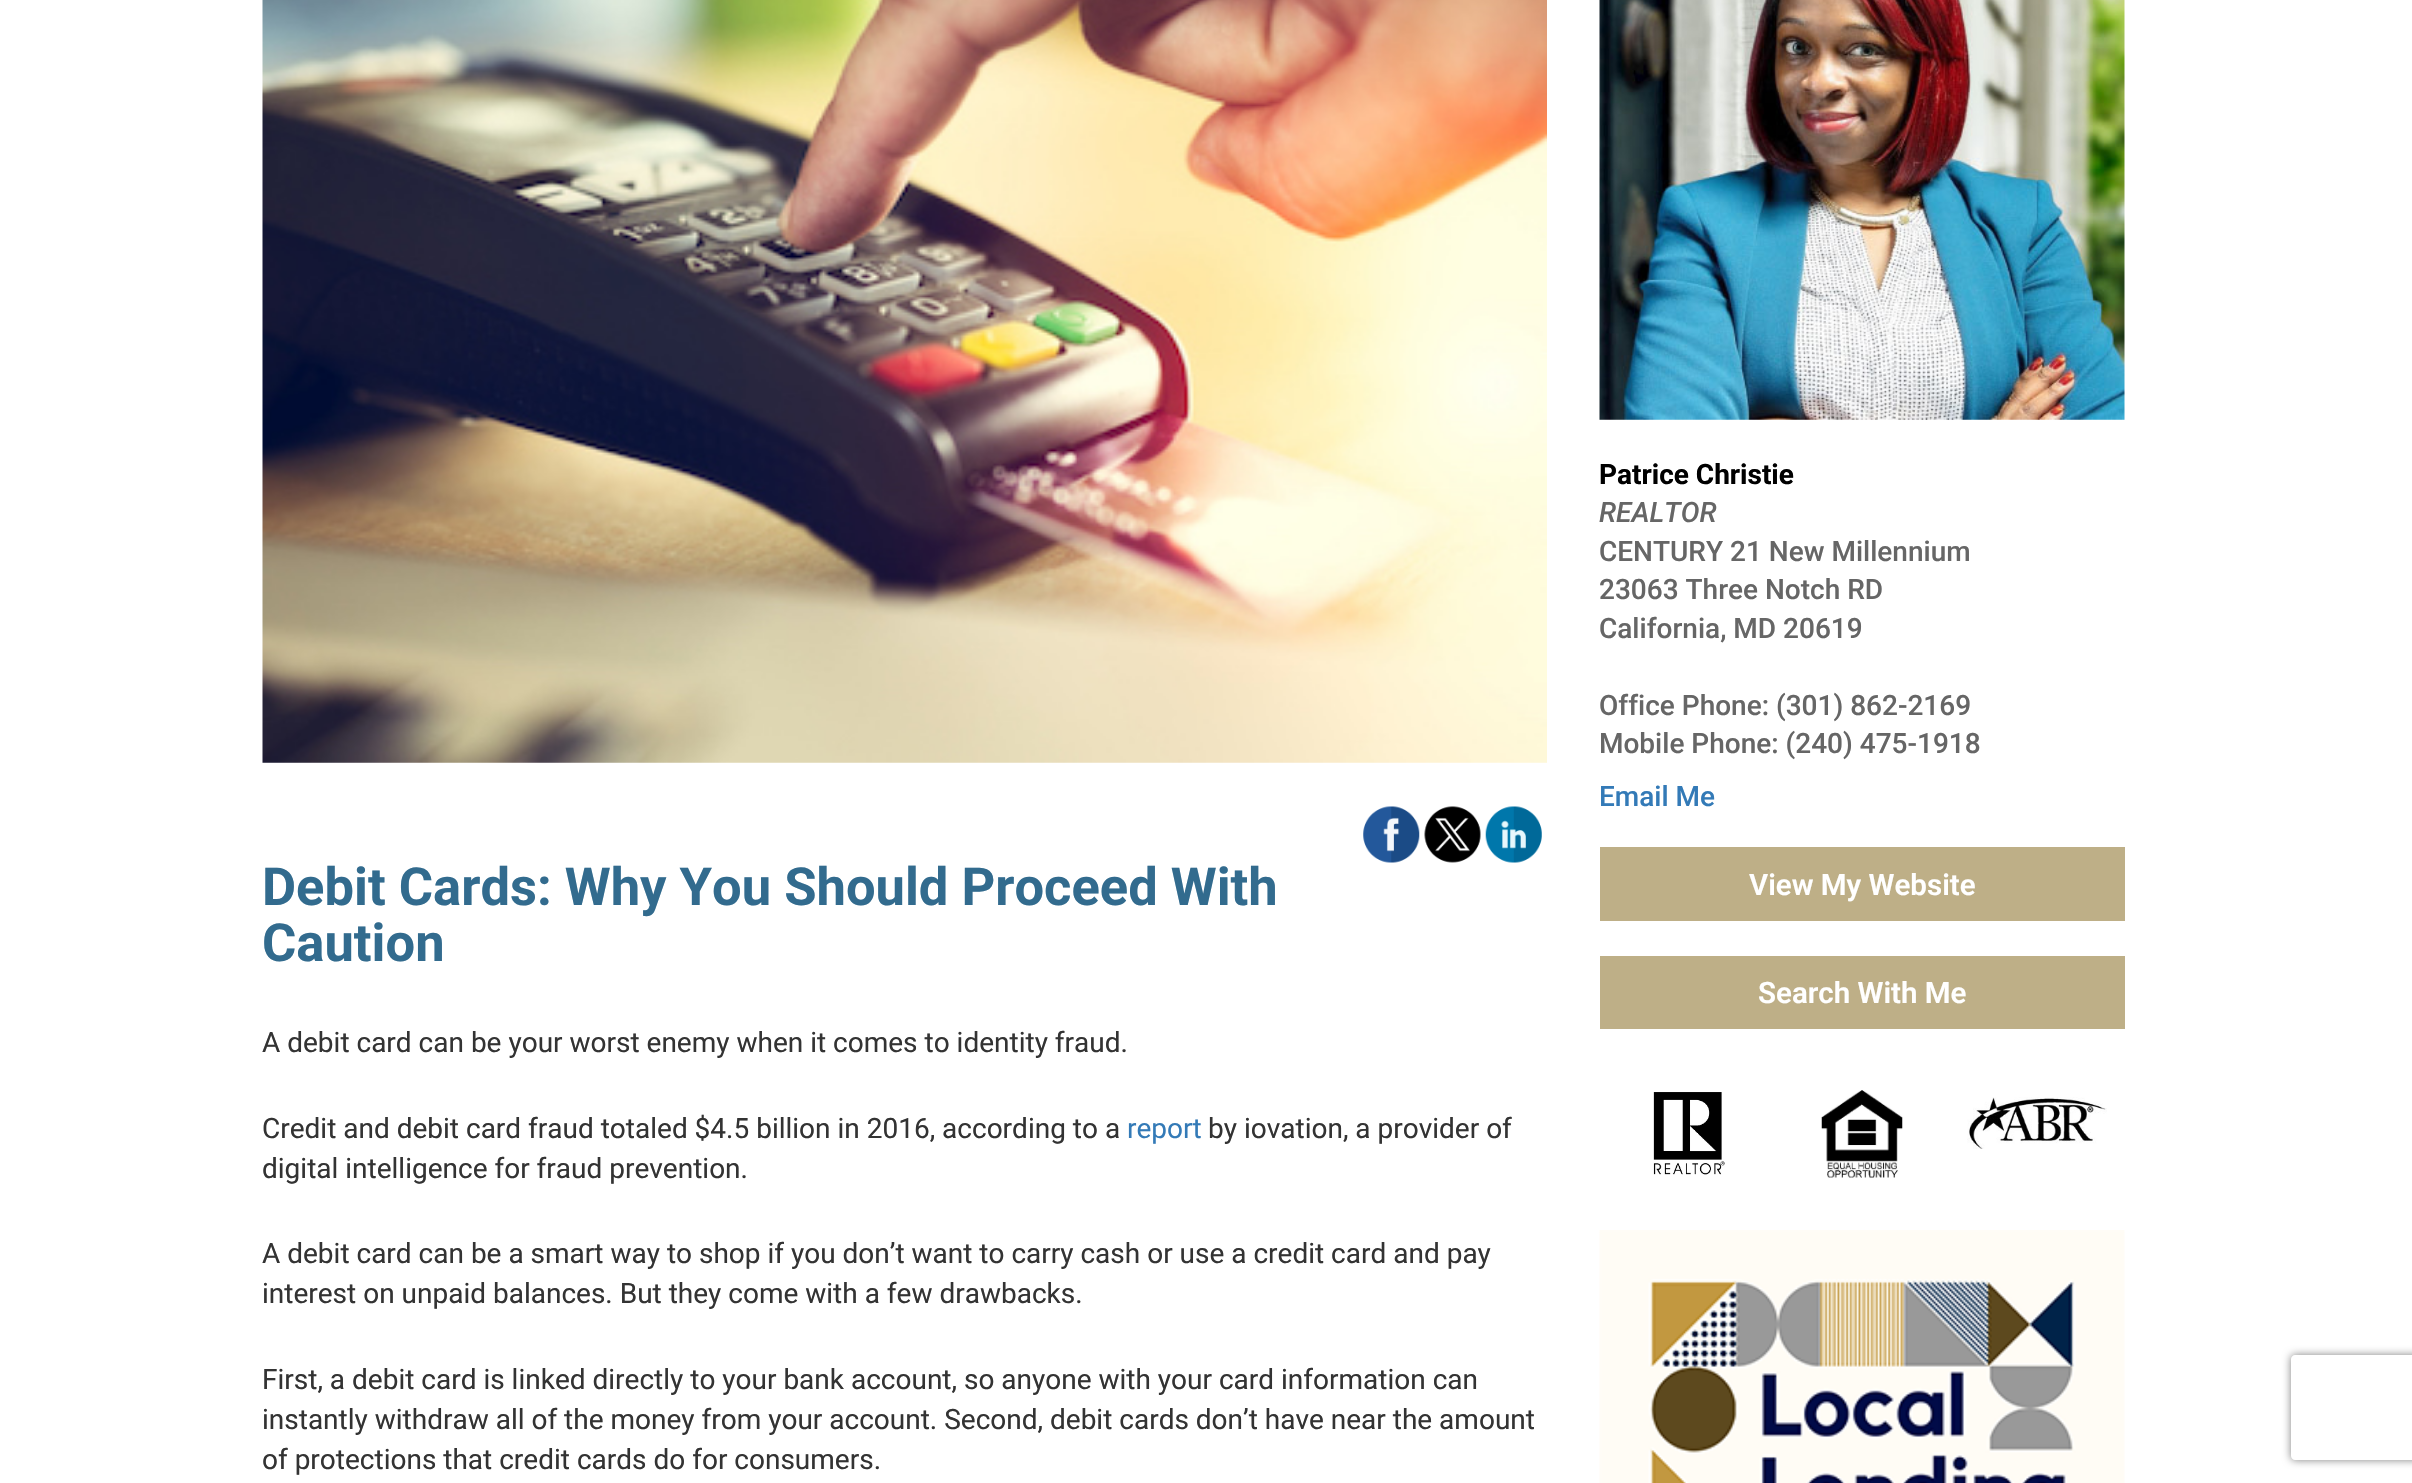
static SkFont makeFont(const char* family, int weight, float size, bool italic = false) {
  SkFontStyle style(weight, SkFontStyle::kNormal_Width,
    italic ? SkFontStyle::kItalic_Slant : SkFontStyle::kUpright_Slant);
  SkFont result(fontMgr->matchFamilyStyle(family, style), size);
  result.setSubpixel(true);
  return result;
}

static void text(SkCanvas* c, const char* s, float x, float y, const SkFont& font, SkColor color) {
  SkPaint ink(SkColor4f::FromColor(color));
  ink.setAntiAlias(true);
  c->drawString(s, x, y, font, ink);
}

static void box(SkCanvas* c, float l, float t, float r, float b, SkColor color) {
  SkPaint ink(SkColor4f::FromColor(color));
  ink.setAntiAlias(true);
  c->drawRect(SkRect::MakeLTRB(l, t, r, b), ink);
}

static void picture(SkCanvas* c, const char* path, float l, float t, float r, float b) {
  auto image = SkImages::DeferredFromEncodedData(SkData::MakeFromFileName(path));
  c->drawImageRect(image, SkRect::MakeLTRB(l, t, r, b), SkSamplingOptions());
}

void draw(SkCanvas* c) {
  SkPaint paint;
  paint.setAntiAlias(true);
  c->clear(0xffffffff);
  picture(c, "img_01.png", 1599, 0, 2125, 420);
  SkFont face1 = makeFont("Roboto", 700, 28);
  text(c, "Patrice Christie", 1599, 484, face1, 0xff000000);
  SkFont face2 = makeFont("Roboto", 500, 28, true);
  text(c, "REALTOR", 1599, 522, face2, 0xff666666);
  SkFont face3 = makeFont("Roboto", 500, 28);
  text(c, "CENTURY 21 New Millennium", 1599, 561, face3, 0xff666666);
  text(c, "23063 Three Notch RD", 1599, 599, face3, 0xff666666);
  text(c, "California, MD 20619", 1599, 638, face3, 0xff666666);
  text(c, "Office Phone: (301) 862-2169", 1599, 715, face3, 0xff666666);
  text(c, "Mobile Phone: (240) 475-1918", 1599, 753, face3, 0xff666666);
  text(c, "Email Me", 1599, 806, face3, 0xff337ab7);
  box(c, 1600, 847, 2125, 921, 0xffbeaf87);
  SkFont face4 = makeFont("Roboto", 600, 29.5f);
  text(c, "View My Website", 1749, 895, face4, 0xffffffff);
  box(c, 1600, 956, 2125, 1029, 0xffbeaf87);
  text(c, "Search With Me", 1758, 1003, face4, 0xffffffff);
  picture(c, "img_02.png", 1653, 1092, 1725, 1175);
  picture(c, "img_03.png", 1821, 1090, 1903, 1178);
  picture(c, "img_04.png", 1967, 1097, 2107, 1149);
  picture(c, "img_05.png", 1599, 1230, 2125, 1483);
  picture(c, "img_06.png", 262, 0, 1547, 763);
  picture(c, "img_07.png", 1363, 806, 1420, 863);
  picture(c, "img_08.png", 1424, 806, 1481, 863);
  picture(c, "img_09.png", 1485, 806, 1542, 863);
  SkFont face5 = makeFont("Roboto", 700, 52.5f);
  text(c, "Debit Cards: Why You Should Proceed With", 262, 905, face5, 0xff326b8e);
  text(c, "Caution", 262, 961, face5, 0xff326b8e);
  SkFont face6 = makeFont("Roboto", 400, 28);
  text(c, "A debit card can be your worst enemy when it comes to identity fraud.", 262, 1052, face6, 0xff333333);
  text(c, "Credit and debit card fraud totaled $4.5 billion in 2016, according to a", 262, 1138, face6, 0xff333333);
  text(c, "report", 1127, 1138, face6, 0xff337ab7);
  text(c, "by iovation, a provider of", 1208, 1138, face6, 0xff333333);
  text(c, "digital intelligence for fraud prevention.", 262, 1178, face6, 0xff333333);
  text(c, "A debit card can be a smart way to shop if you don’t want to carry cash or use a credit card and pay", 262, 1263, face6, 0xff333333);
  text(c, "interest on unpaid balances. But they come with a few drawbacks.", 262, 1303, face6, 0xff333333);
  text(c, "First, a debit card is linked directly to your bank account, so anyone with your card information can", 262, 1389, face6, 0xff333333);
  text(c, "instantly withdraw all of the money from your account. Second, debit cards don’t have near the amount", 262, 1429, face6, 0xff333333);
  text(c, "of protections that credit cards do for consumers.", 262, 1469, face6, 0xff333333);
  c->save();
  c->clipPath(SkPathBuilder(SkPathFillType::kEvenOdd).moveTo(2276, 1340).lineTo(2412, 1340).lineTo(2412, 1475).lineTo(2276, 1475).close().moveTo(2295, 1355).lineTo(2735, 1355).cubicTo(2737, 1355, 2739, 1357, 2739, 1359).lineTo(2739, 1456).cubicTo(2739, 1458, 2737, 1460, 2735, 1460).lineTo(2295, 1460).cubicTo(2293, 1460, 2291, 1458, 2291, 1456).lineTo(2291, 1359).cubicTo(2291, 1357, 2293, 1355, 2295, 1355).close().detach(), true);
  paint.setColor(0xff808080);
  paint.setMaskFilter(SkMaskFilter::MakeBlur(kNormal_SkBlurStyle, 4.5f));
  c->drawRoundRect(SkRect::MakeLTRB(2291, 1355, 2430, 1460), 4, 4, paint);
  paint.setMaskFilter(nullptr);
  c->restore();
}
